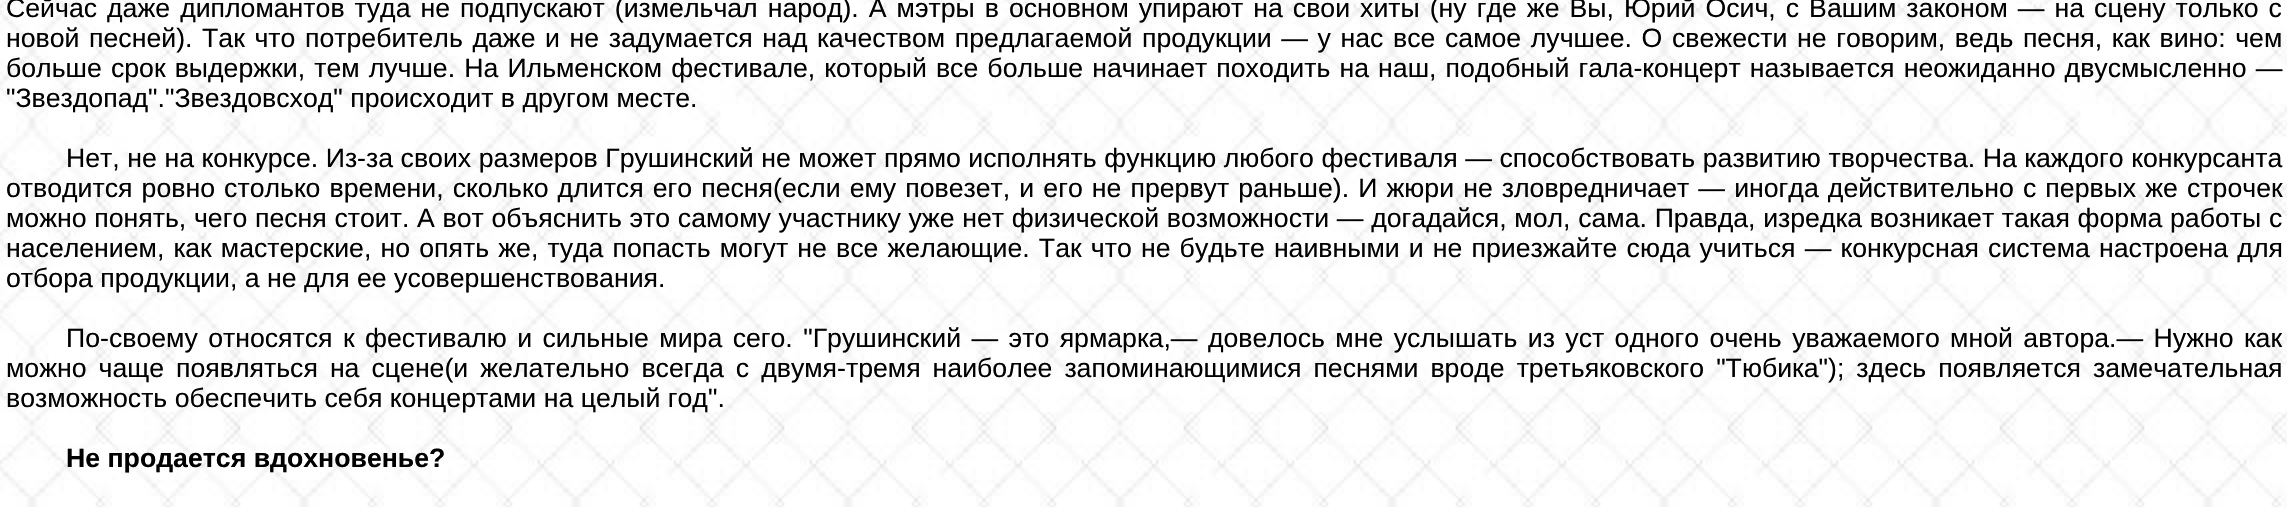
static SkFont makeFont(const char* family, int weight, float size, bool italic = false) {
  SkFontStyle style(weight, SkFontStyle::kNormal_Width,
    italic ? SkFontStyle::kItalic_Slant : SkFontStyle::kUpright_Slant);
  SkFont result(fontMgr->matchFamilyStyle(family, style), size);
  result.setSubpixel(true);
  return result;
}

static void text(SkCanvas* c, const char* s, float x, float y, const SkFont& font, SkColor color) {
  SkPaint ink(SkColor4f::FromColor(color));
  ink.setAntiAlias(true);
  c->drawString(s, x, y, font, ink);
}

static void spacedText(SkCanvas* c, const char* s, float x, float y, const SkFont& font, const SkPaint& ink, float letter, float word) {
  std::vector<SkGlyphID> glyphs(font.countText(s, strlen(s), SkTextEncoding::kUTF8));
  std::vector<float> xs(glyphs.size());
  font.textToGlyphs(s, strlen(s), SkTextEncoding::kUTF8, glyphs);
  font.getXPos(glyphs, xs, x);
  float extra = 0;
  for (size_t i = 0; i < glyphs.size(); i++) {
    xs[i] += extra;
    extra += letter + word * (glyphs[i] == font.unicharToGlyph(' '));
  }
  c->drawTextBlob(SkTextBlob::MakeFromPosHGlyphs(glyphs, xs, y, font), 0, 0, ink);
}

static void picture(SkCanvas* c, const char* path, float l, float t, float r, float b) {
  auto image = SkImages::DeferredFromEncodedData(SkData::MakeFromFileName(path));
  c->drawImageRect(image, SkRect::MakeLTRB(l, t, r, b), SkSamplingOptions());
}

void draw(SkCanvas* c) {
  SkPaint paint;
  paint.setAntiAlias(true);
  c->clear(0xffffffff);
  picture(c, "img_01.png", 0, 0, 2287, 507);
  SkFont face1 = makeFont("Liberation Sans", 400, 26.67f);
  paint.setColor(0xff000000);
  spacedText(c, "Сейчас даже дипломантов туда не подпускают (измельчал народ). А мэтры в основном упирают на свои хиты (ну где же Вы, Юрий Осич, с Вашим законом — на сцену только с", 6, 17, face1, paint, 0, 2.6f);
  spacedText(c, "новой песней). Так что потребитель даже и не задумается над качеством предлагаемой продукции — у нас все самое лучшее. О свежести не говорим, ведь песня, как вино: чем", 6, 47, face1, paint, 0, 2.2f);
  spacedText(c, "больше срок выдержки, тем лучше. На Ильменском фестивале, который все больше начинает походить на наш, подобный гала-концерт называется неожиданно двусмысленно —", 6, 77, face1, paint, 0, 1.7f);
  text(c, "\"Звездопад\".\"Звездовсход\" происходит в другом месте.", 6, 107, face1, 0xff000000);
  spacedText(c, "Нет, не на конкурсе. Из-за своих размеров Грушинский не может прямо исполнять функцию любого фестиваля — способствовать развитию творчества. На каждого конкурсанта", 66, 167, face1, paint, 0, 0.15f);
  spacedText(c, "отводится ровно столько времени, сколько длится его песня(если ему повезет, и его не прервут раньше). И жюри не зловредничает — иногда действительно с первых же строчек", 6, 197, face1, paint, 0, 1.7f);
  spacedText(c, "можно понять, чего песня стоит. А вот объяснить это самому участнику уже нет физической возможности — догадайся, мол, сама. Правда, изредка возникает такая форма работы с", 6, 227, face1, paint, 0, 0.3f);
  spacedText(c, "населением, как мастерские, но опять же, туда попасть могут не все желающие. Так что не будьте наивными и не приезжайте сюда учиться — конкурсная система настроена для", 6, 257, face1, paint, 0, 1.75f);
  text(c, "отбора продукции, а не для ее усовершенствования.", 6, 287, face1, 0xff000000);
  spacedText(c, "По-своему относятся к фестивалю и сильные мира сего. \"Грушинский — это ярмарка,— довелось мне услышать из уст одного очень уважаемого мной автора.— Нужно как", 66, 347, face1, paint, 0, 3);
  spacedText(c, "можно чаще появляться на сцене(и желательно всегда с двумя-тремя наиболее запоминающимися песнями вроде третьяковского \"Тюбика\"); здесь появляется замечательная", 6, 377, face1, paint, 0, 4.6f);
  text(c, "возможность обеспечить себя концертами на целый год\".", 6, 407, face1, 0xff000000);
  SkFont face2 = makeFont("Liberation Sans", 700, 26.67f);
  text(c, "Не продается вдохновенье?", 66, 467, face2, 0xff000000);
}
